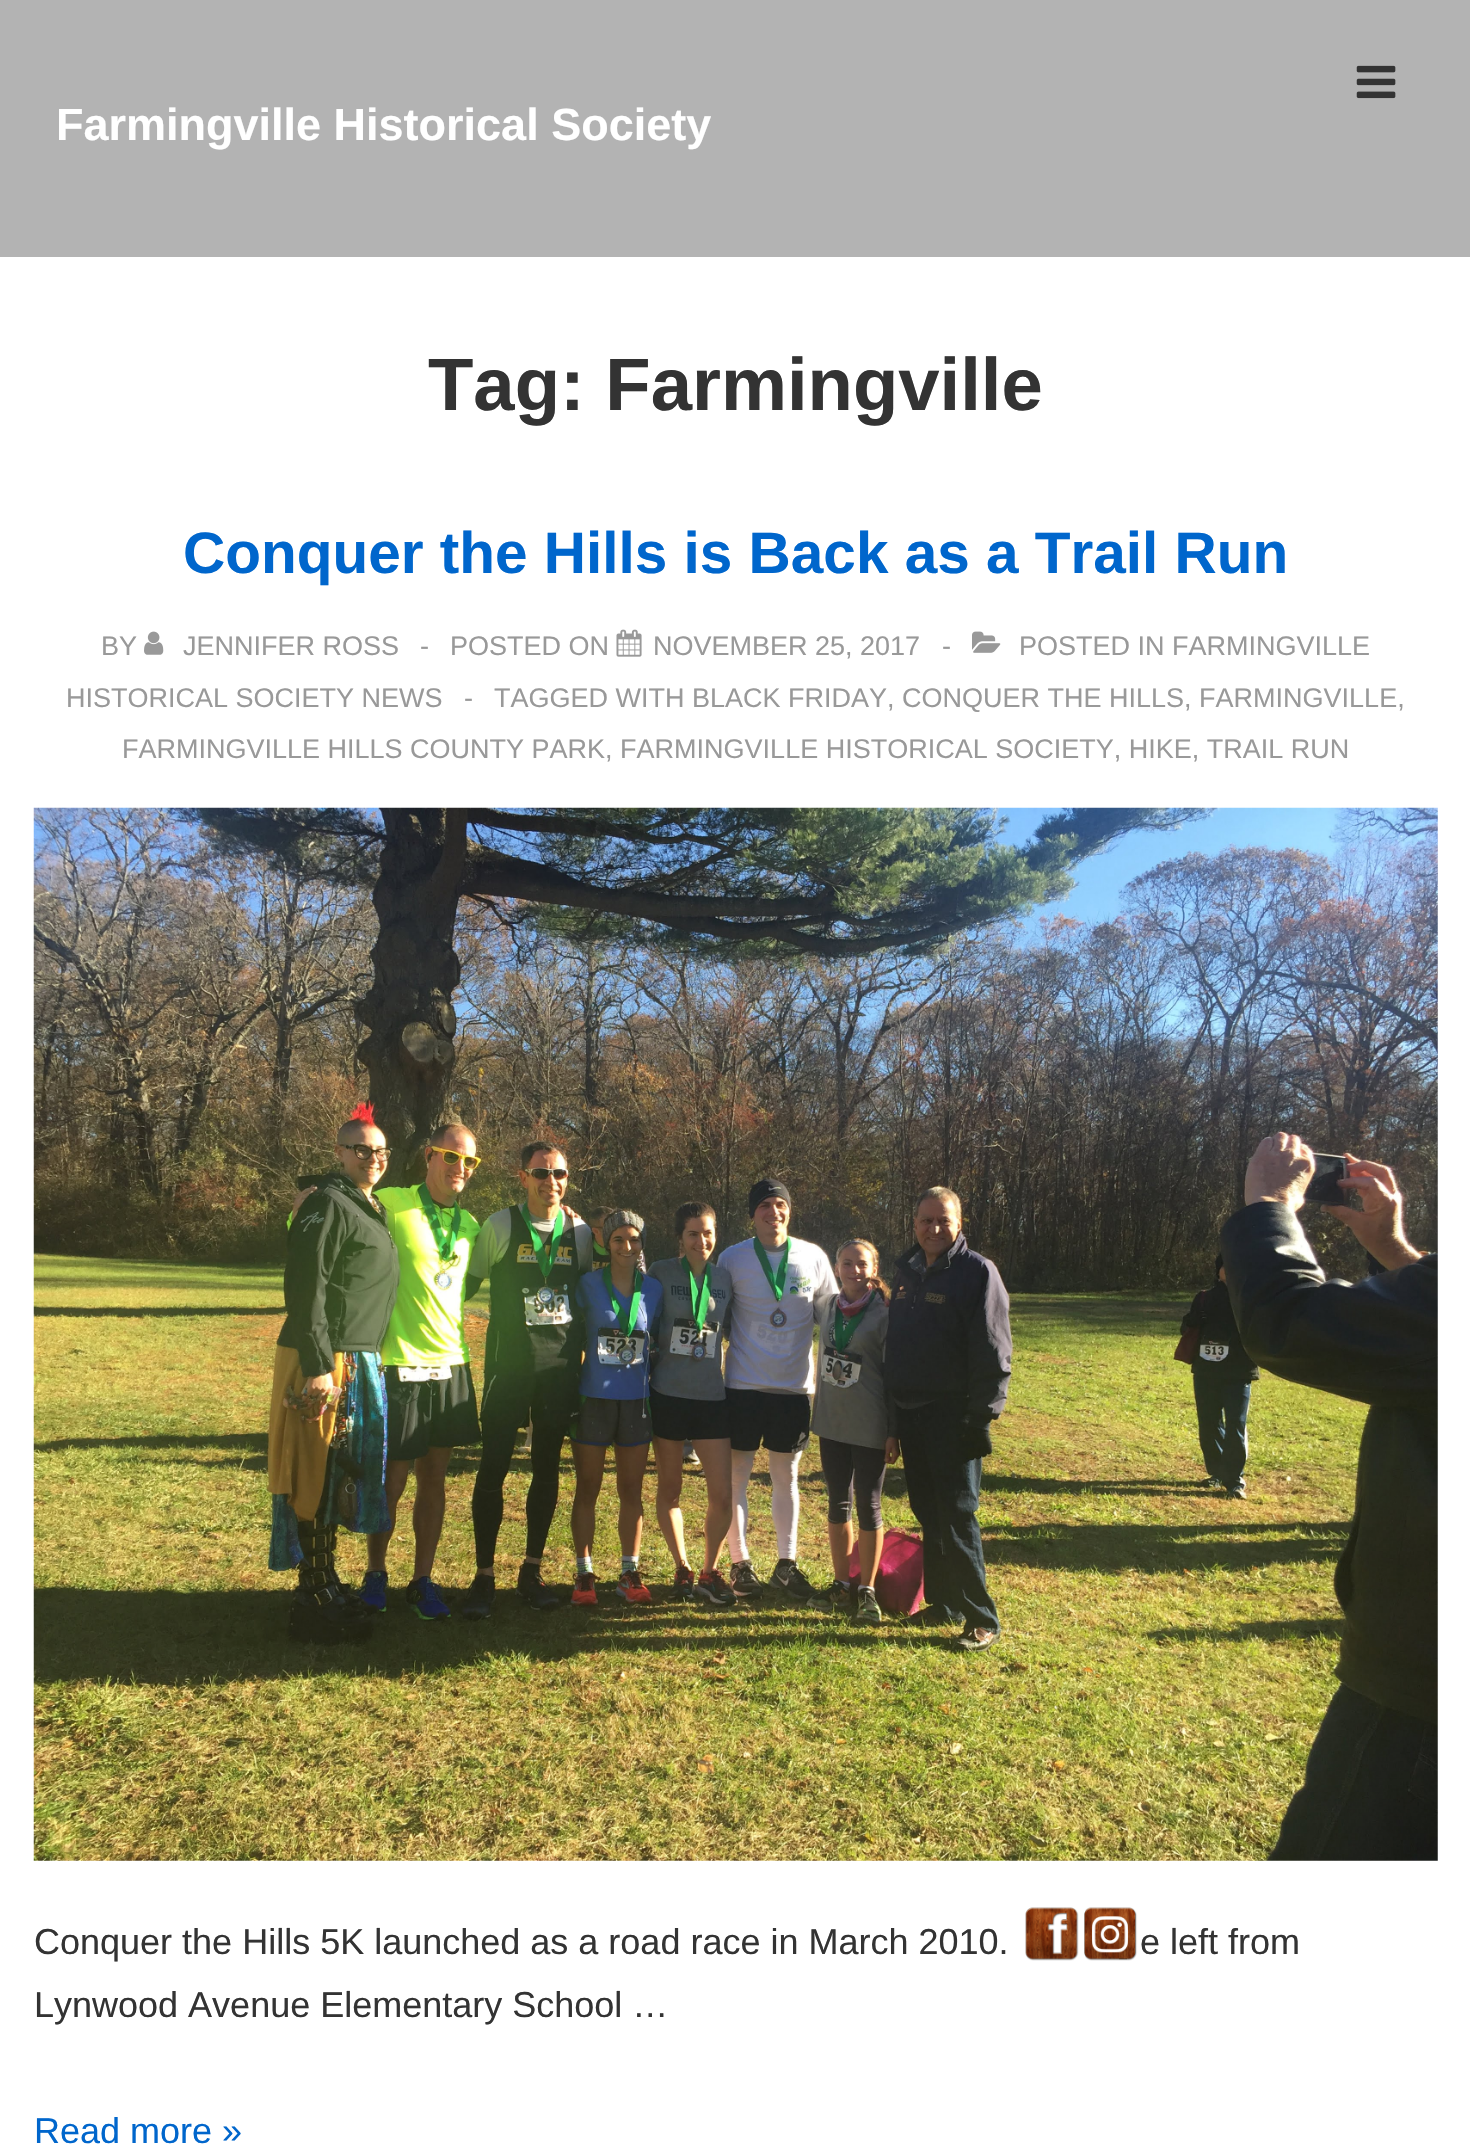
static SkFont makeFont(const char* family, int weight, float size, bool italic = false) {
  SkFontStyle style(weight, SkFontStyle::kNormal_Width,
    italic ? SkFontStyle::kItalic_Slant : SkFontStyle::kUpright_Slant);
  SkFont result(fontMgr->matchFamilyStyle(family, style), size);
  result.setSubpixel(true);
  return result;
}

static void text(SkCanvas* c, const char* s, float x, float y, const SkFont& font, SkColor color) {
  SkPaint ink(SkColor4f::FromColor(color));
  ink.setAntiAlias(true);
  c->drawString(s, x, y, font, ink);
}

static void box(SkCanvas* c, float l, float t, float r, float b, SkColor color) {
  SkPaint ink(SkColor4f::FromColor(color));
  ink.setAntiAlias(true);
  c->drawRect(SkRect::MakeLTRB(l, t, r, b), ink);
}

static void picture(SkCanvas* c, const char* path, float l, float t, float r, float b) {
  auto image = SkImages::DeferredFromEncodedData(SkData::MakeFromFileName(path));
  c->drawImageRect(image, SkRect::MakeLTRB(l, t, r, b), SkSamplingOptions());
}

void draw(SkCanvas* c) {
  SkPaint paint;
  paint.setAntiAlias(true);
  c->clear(0xffffffff);
  box(c, 0, 0, 1470, 257, 0xffb3b3b3);
  picture(c, "img_01.png", 1356, 65, 1396, 99);
  SkFont face1 = makeFont("Liberation Sans", 700, 45);
  text(c, "Farmingville Historical Society", 56, 140, face1, 0xffffffff);
  SkFont face2 = makeFont("Liberation Sans", 700, 74.25f);
  text(c, "Tag: Farmingville", 428, 410, face2, 0xff333333);
  SkFont face3 = makeFont("Liberation Sans", 700, 58.5f);
  text(c, "Conquer the Hills is Back as a Trail Run", 183, 573, face3, 0xff0066cc);
  SkFont face4 = makeFont("Liberation Sans", 400, 27);
  text(c, "BY", 101, 655, face4, 0xff999999);
  picture(c, "img_02.png", 144, 631, 164, 655);
  text(c, "JENNIFER ROSS", 183, 655, face4, 0xff999999);
  text(c, "-", 420, 655, face4, 0xff999999);
  text(c, "POSTED ON", 450, 655, face4, 0xff999999);
  picture(c, "img_03.png", 616, 629, 642, 657);
  text(c, "NOVEMBER 25, 2017", 653, 655, face4, 0xff999999);
  text(c, "-", 942, 655, face4, 0xff999999);
  picture(c, "img_04.png", 972, 631, 1001, 653);
  text(c, "POSTED IN FARMINGVILLE", 1019, 655, face4, 0xff999999);
  text(c, "HISTORICAL SOCIETY NEWS", 66, 707, face4, 0xff999999);
  text(c, "-", 464, 707, face4, 0xff999999);
  text(c, "TAGGED WITH BLACK FRIDAY, CONQUER THE HILLS, FARMINGVILLE,", 494, 707, face4, 0xff999999);
  text(c, "FARMINGVILLE HILLS COUNTY PARK, FARMINGVILLE HISTORICAL SOCIETY, HIKE, TRAIL RUN", 122, 758, face4, 0xff999999);
  picture(c, "img_05.png", 33, 807, 1438, 1861);
  SkFont face5 = makeFont("Liberation Sans", 400, 36);
  text(c, "Conquer the Hills 5K launched as a road race in March 2010.", 34, 1954, face5, 0xff333333);
  text(c, "e left from", 1140, 1954, face5, 0xff333333);
  text(c, "Lynwood Avenue Elementary School …", 34, 2017, face5, 0xff333333);
  text(c, "Read more »", 34, 2143, face5, 0xff0066cc);
  picture(c, "img_06.png", 1024, 1907, 1079, 1961);
  picture(c, "img_07.png", 1084, 1907, 1138, 1961);
}
